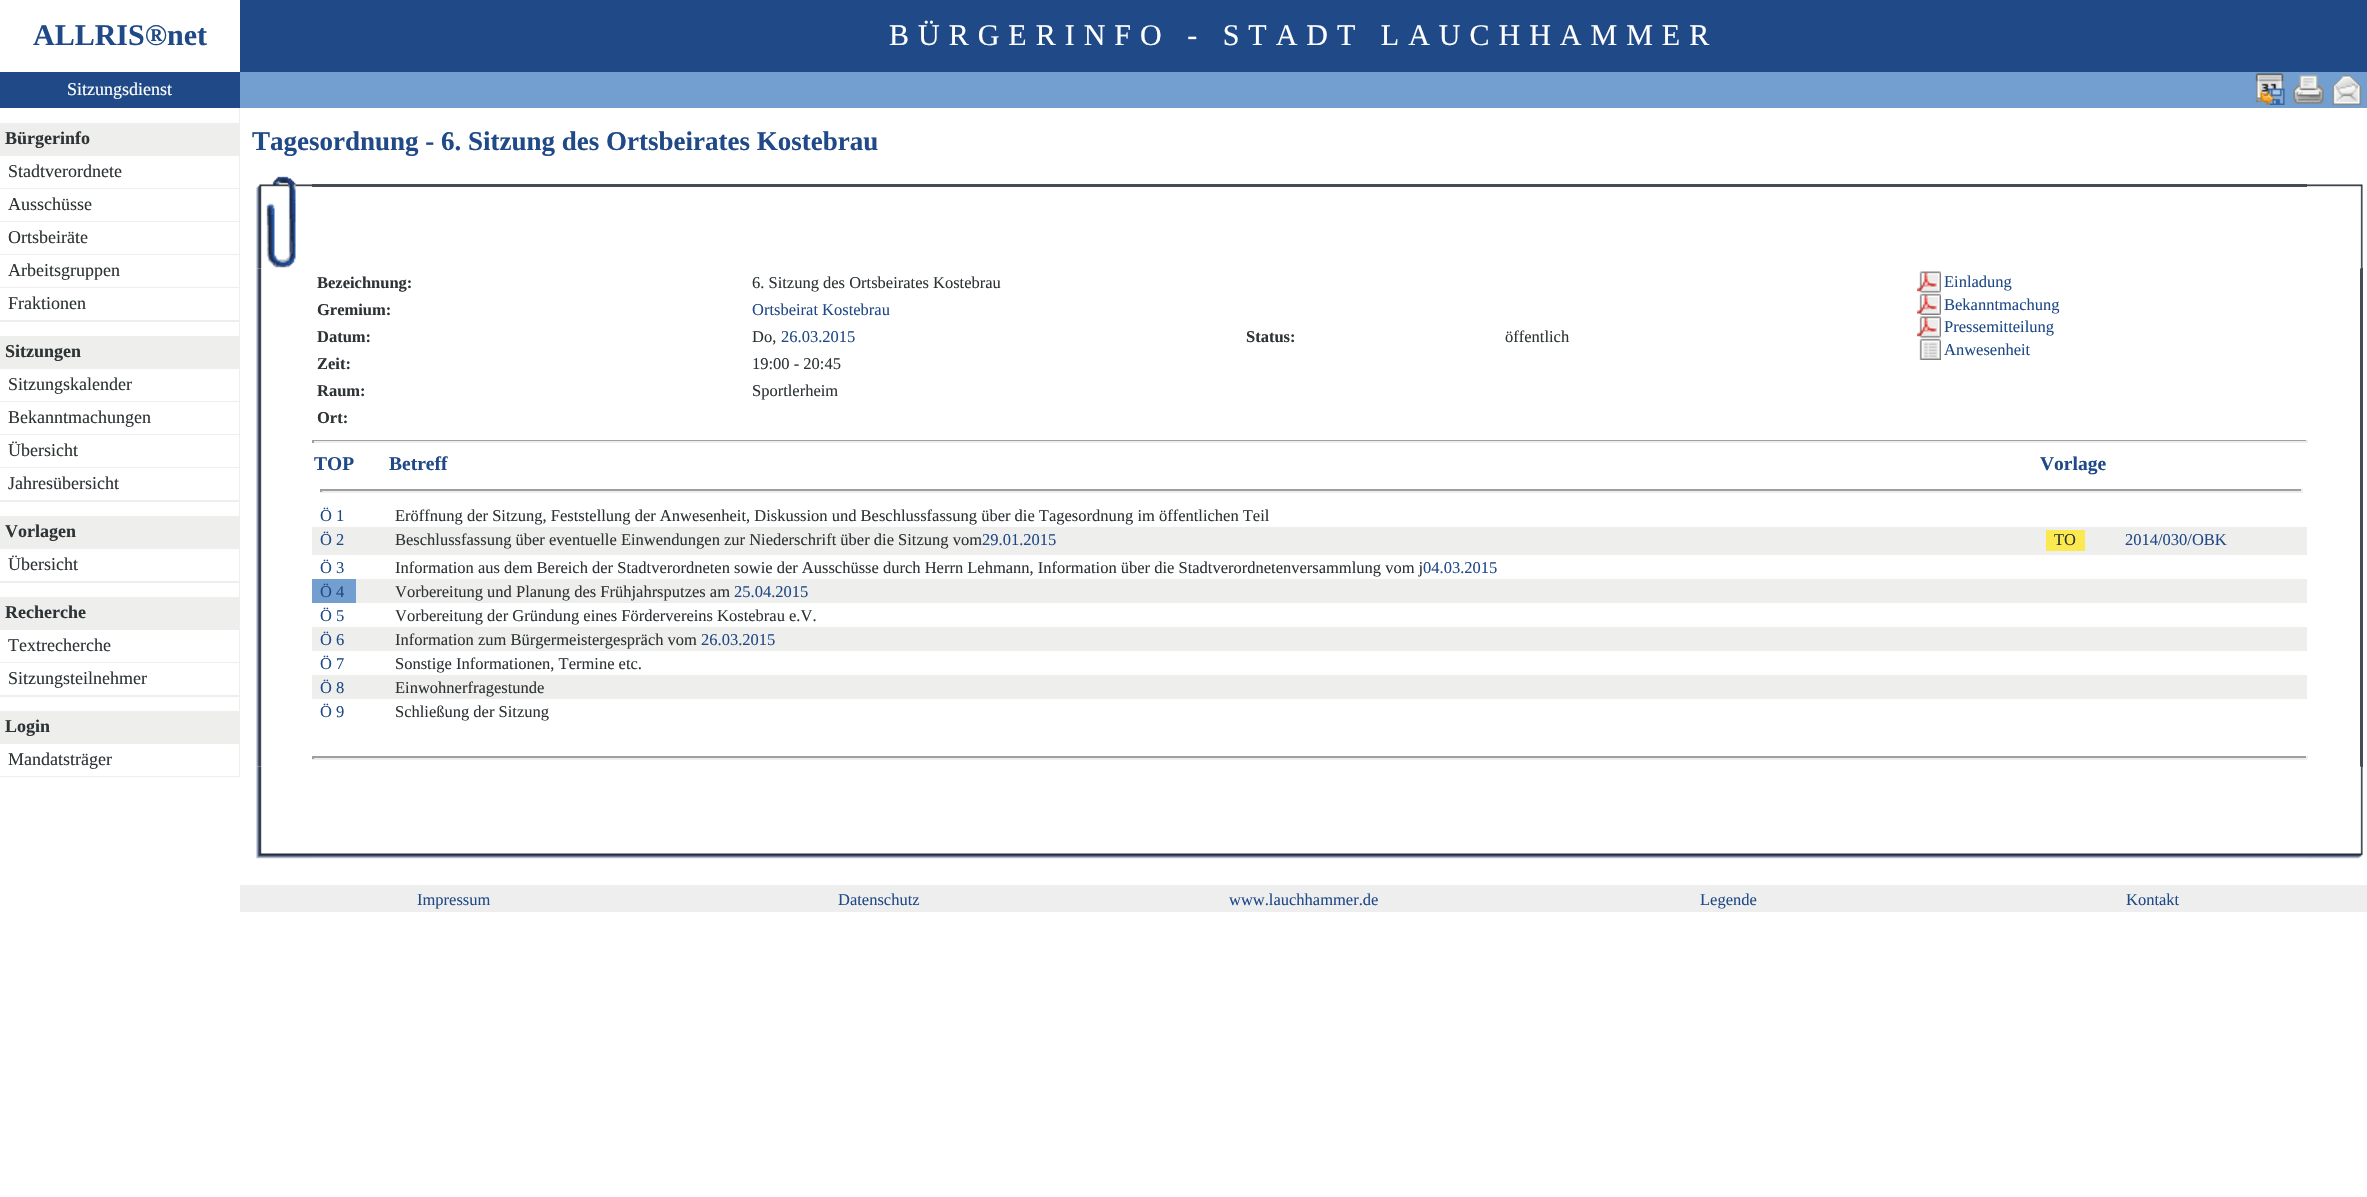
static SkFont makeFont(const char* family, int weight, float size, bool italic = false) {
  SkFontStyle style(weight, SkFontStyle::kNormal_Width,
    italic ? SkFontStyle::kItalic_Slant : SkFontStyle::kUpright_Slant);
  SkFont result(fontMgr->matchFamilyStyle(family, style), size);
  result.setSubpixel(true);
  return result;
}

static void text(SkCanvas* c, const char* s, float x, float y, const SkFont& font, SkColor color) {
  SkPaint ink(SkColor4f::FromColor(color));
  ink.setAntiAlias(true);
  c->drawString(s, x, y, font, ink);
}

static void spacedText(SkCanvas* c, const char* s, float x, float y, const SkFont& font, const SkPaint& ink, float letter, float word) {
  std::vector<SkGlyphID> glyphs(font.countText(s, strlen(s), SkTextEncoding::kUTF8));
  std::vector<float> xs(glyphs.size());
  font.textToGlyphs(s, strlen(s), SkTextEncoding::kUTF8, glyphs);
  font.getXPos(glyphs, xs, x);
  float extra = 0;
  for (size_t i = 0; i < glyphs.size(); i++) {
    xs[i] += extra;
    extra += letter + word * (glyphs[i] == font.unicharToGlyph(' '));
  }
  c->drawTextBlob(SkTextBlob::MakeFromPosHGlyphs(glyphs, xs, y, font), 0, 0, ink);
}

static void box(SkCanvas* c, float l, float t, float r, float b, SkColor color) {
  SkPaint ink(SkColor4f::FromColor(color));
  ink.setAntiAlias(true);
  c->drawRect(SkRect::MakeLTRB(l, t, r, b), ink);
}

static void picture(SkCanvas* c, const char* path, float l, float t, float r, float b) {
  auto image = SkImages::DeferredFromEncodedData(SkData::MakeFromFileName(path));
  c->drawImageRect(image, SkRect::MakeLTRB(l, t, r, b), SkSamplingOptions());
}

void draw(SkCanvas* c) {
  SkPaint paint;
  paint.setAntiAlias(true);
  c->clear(0xffffffff);
  box(c, 239, 108, 240, 777, 0xffeeeeee);
  SkFont face1 = makeFont("Liberation Serif", 700, 30);
  text(c, "ALLRIS®net", 33, 45, face1, 0xff204a87);
  box(c, 0, 72, 240, 108, 0xff204a87);
  SkFont face2 = makeFont("Liberation Serif", 400, 18);
  text(c, "Sitzungsdienst", 67, 95, face2, 0xffffffff);
  box(c, 0, 123, 239, 156, 0xffeeeeec);
  SkFont face3 = makeFont("Liberation Serif", 700, 18);
  text(c, "Bürgerinfo", 5, 144, face3, 0xff2e3436);
  box(c, 0, 188, 239, 189, 0xffeeeeec);
  text(c, "Stadtverordnete", 8, 177, face2, 0xff2e3436);
  box(c, 0, 221, 239, 222, 0xffeeeeec);
  text(c, "Ausschüsse", 8, 210, face2, 0xff2e3436);
  box(c, 0, 254, 239, 255, 0xffeeeeec);
  text(c, "Ortsbeiräte", 8, 243, face2, 0xff2e3436);
  box(c, 0, 287, 239, 288, 0xffeeeeec);
  text(c, "Arbeitsgruppen", 8, 276, face2, 0xff2e3436);
  box(c, 0, 320, 239, 322, 0xffeeeeec);
  text(c, "Fraktionen", 8, 309, face2, 0xff2e3436);
  box(c, 0, 336, 239, 369, 0xffeeeeec);
  text(c, "Sitzungen", 5, 357, face3, 0xff2e3436);
  box(c, 0, 401, 239, 402, 0xffeeeeec);
  text(c, "Sitzungskalender", 8, 390, face2, 0xff2e3436);
  box(c, 0, 434, 239, 435, 0xffeeeeec);
  text(c, "Bekanntmachungen", 8, 423, face2, 0xff2e3436);
  box(c, 0, 467, 239, 468, 0xffeeeeec);
  text(c, "Übersicht", 8, 456, face2, 0xff2e3436);
  box(c, 0, 500, 239, 502, 0xffeeeeec);
  text(c, "Jahresübersicht", 8, 489, face2, 0xff2e3436);
  box(c, 0, 516, 239, 549, 0xffeeeeec);
  text(c, "Vorlagen", 5, 537, face3, 0xff2e3436);
  box(c, 0, 581, 239, 583, 0xffeeeeec);
  text(c, "Übersicht", 8, 570, face2, 0xff2e3436);
  box(c, 0, 597, 239, 630, 0xffeeeeec);
  text(c, "Recherche", 5, 618, face3, 0xff2e3436);
  box(c, 0, 662, 239, 663, 0xffeeeeec);
  text(c, "Textrecherche", 8, 651, face2, 0xff2e3436);
  box(c, 0, 695, 239, 697, 0xffeeeeec);
  text(c, "Sitzungsteilnehmer", 8, 684, face2, 0xff2e3436);
  box(c, 0, 711, 239, 744, 0xffeeeeec);
  text(c, "Login", 5, 732, face3, 0xff2e3436);
  box(c, 0, 776, 239, 777, 0xffeeeeec);
  text(c, "Mandatsträger", 8, 765, face2, 0xff2e3436);
  box(c, 240, 0, 2367, 72, 0xff204a87);
  SkFont face4 = makeFont("Liberation Serif", 400, 30);
  paint.setColor(0xffffffff);
  spacedText(c, "BÜRGERINFO - STADT LAUCHHAMMER", 889, 45, face4, paint, 9, 0);
  box(c, 240, 72, 2367, 108, 0xff729fcf);
  picture(c, "img_01.png", 2255, 73, 2285, 105);
  picture(c, "img_02.png", 2293, 74, 2324, 104);
  picture(c, "img_03.png", 2332, 74, 2362, 106);
  SkFont face5 = makeFont("Liberation Serif", 700, 27);
  text(c, "Tagesordnung - 6. Sitzung des Ortsbeirates Kostebrau", 252, 150, face5, 0xff204a87);
  picture(c, "img_06.png", 256, 268, 262, 767);
  picture(c, "img_04.png", 256, 176, 312, 269);
  box(c, 312, 184, 2307, 187, 0xff474b56);
  box(c, 2360, 268, 2363, 767, 0xff474b56);
  picture(c, "img_05.png", 2307, 184, 2363, 269);
  SkFont face6 = makeFont("Liberation Serif", 700, 16.5f);
  text(c, "Bezeichnung:", 317, 288, face6, 0xff2e3436);
  SkFont face7 = makeFont("Liberation Serif", 400, 16.5f);
  text(c, "6. Sitzung des Ortsbeirates Kostebrau", 752, 288, face7, 0xff2e3436);
  text(c, "Gremium:", 317, 315, face6, 0xff2e3436);
  text(c, "Ortsbeirat Kostebrau", 752, 315, face7, 0xff204a87);
  text(c, "Datum:", 317, 342, face6, 0xff2e3436);
  text(c, "Do,", 752, 342, face7, 0xff2e3436);
  text(c, "26.03.2015", 781, 342, face7, 0xff204a87);
  text(c, "Status:", 1246, 342, face6, 0xff2e3436);
  text(c, "öffentlich", 1505, 342, face7, 0xff2e3436);
  text(c, "Zeit:", 317, 369, face6, 0xff2e3436);
  text(c, "19:00 - 20:45", 752, 369, face7, 0xff2e3436);
  text(c, "Raum:", 317, 396, face6, 0xff2e3436);
  text(c, "Sportlerheim", 752, 396, face7, 0xff2e3436);
  text(c, "Ort:", 317, 423, face6, 0xff2e3436);
  picture(c, "img_07.png", 1917, 271, 1941, 293);
  text(c, "Einladung", 1944, 287, face7, 0xff204a87);
  picture(c, "img_08.png", 1917, 293, 1941, 315);
  text(c, "Bekanntmachung", 1944, 310, face7, 0xff204a87);
  picture(c, "img_07.png", 1917, 316, 1941, 338);
  text(c, "Pressemitteilung", 1944, 332, face7, 0xff204a87);
  picture(c, "img_09.png", 1919, 338, 1941, 360);
  text(c, "Anwesenheit", 1944, 355, face7, 0xff204a87);
  box(c, 312, 440, 2307, 441, 0xff9f9f9f);
  box(c, 2306, 440, 2308, 443, 0xffeeeeee);
  box(c, 312, 441, 2307, 443, 0xffeeeeee);
  box(c, 312, 440, 314, 443, 0xff9f9f9f);
  SkFont face8 = makeFont("Liberation Serif", 700, 19.5f);
  text(c, "TOP", 314, 470, face8, 0xff204a87);
  text(c, "Betreff", 389, 470, face8, 0xff204a87);
  text(c, "Vorlage", 2040, 470, face8, 0xff204a87);
  box(c, 320, 489, 2303, 491, 0xff9f9f9f);
  box(c, 2301, 489, 2303, 492, 0xffeeeeee);
  box(c, 320, 491, 2303, 493, 0xffeeeeee);
  box(c, 320, 489, 322, 492, 0xff9f9f9f);
  text(c, "Ö 1", 320, 521, face7, 0xff204a87);
  text(c, "Eröffnung der Sitzung, Feststellung der Anwesenheit, Diskussion und Beschlussfassung über die Tagesordnung im öffentlichen Teil", 395, 521, face7, 0xff2e3436);
  box(c, 312, 527, 2307, 555, 0xffeeeeec);
  text(c, "Ö 2", 320, 545, face7, 0xff204a87);
  text(c, "Beschlussfassung über eventuelle Einwendungen zur Niederschrift über die Sitzung vom", 395, 545, face7, 0xff2e3436);
  text(c, "29.01.2015", 982, 545, face7, 0xff204a87);
  box(c, 2046, 530, 2085, 551, 0xfffce94f);
  text(c, "TO", 2054, 545, face7, 0xff2e3436);
  text(c, "2014/030/OBK", 2125, 545, face7, 0xff204a87);
  text(c, "Ö 3", 320, 573, face7, 0xff204a87);
  text(c, "Information aus dem Bereich der Stadtverordneten sowie der Ausschüsse durch Herrn Lehmann, Information über die Stadtverordnetenversammlung vom j", 395, 573, face7, 0xff2e3436);
  text(c, "04.03.2015", 1423, 573, face7, 0xff204a87);
  box(c, 356, 579, 2307, 603, 0xffeeeeec);
  box(c, 312, 579, 356, 603, 0xff729fcf);
  text(c, "Ö 4", 320, 597, face7, 0xff204a87);
  text(c, "Vorbereitung und Planung des Frühjahrsputzes am", 395, 597, face7, 0xff2e3436);
  text(c, "25.04.2015", 734, 597, face7, 0xff204a87);
  text(c, "Ö 5", 320, 621, face7, 0xff204a87);
  text(c, "Vorbereitung der Gründung eines Fördervereins Kostebrau e.V.", 395, 621, face7, 0xff2e3436);
  box(c, 312, 627, 2307, 651, 0xffeeeeec);
  text(c, "Ö 6", 320, 645, face7, 0xff204a87);
  text(c, "Information zum Bürgermeistergespräch vom", 395, 645, face7, 0xff2e3436);
  text(c, "26.03.2015", 701, 645, face7, 0xff204a87);
  text(c, "Ö 7", 320, 669, face7, 0xff204a87);
  text(c, "Sonstige Informationen, Termine etc.", 395, 669, face7, 0xff2e3436);
  box(c, 312, 675, 2307, 699, 0xffeeeeec);
  text(c, "Ö 8", 320, 693, face7, 0xff204a87);
  text(c, "Einwohnerfragestunde", 395, 693, face7, 0xff2e3436);
  text(c, "Ö 9", 320, 717, face7, 0xff204a87);
  text(c, "Schließung der Sitzung", 395, 717, face7, 0xff2e3436);
  box(c, 312, 756, 2307, 758, 0xff9f9f9f);
  box(c, 2306, 756, 2308, 759, 0xffeeeeee);
  box(c, 312, 758, 2307, 760, 0xffeeeeee);
  box(c, 312, 756, 314, 759, 0xff9f9f9f);
  picture(c, "img_10.png", 256, 766, 312, 859);
  picture(c, "img_11.png", 312, 853, 2307, 859);
  picture(c, "img_12.png", 2307, 766, 2363, 859);
  box(c, 240, 885, 2367, 912, 0xffeeeeee);
  text(c, "Impressum", 417, 905, face7, 0xff204a87);
  text(c, "Datenschutz", 838, 905, face7, 0xff204a87);
  text(c, "www.lauchhammer.de", 1229, 905, face7, 0xff204a87);
  text(c, "Legende", 1700, 905, face7, 0xff204a87);
  text(c, "Kontakt", 2126, 905, face7, 0xff204a87);
}
